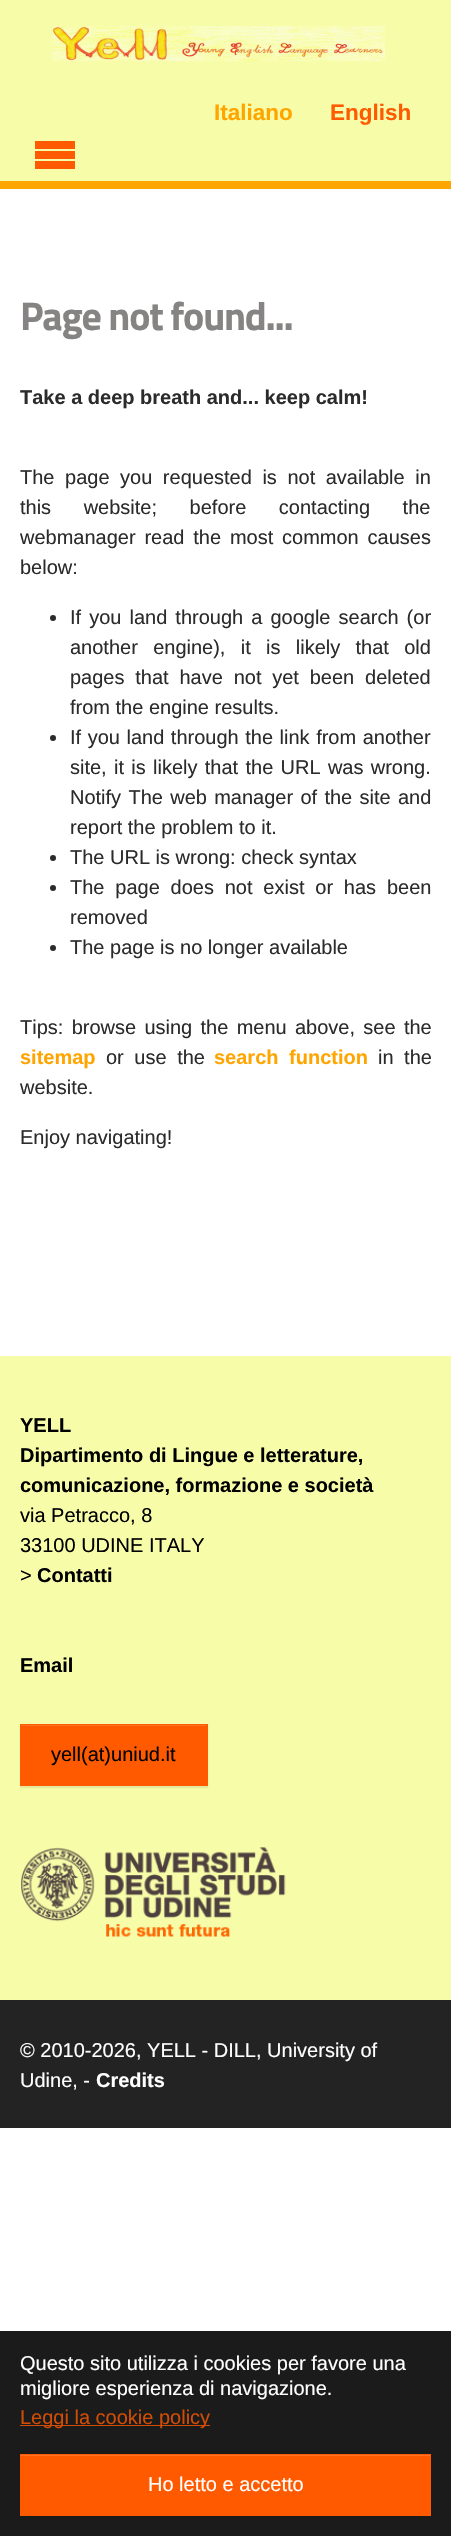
static SkFont makeFont(const char* family, int weight, float size, bool italic = false) {
  SkFontStyle style(weight, SkFontStyle::kNormal_Width,
    italic ? SkFontStyle::kItalic_Slant : SkFontStyle::kUpright_Slant);
  SkFont result(fontMgr->matchFamilyStyle(family, style), size);
  result.setSubpixel(true);
  return result;
}

static void text(SkCanvas* c, const char* s, float x, float y, const SkFont& font, SkColor color) {
  SkPaint ink(SkColor4f::FromColor(color));
  ink.setAntiAlias(true);
  c->drawString(s, x, y, font, ink);
}

static void spacedText(SkCanvas* c, const char* s, float x, float y, const SkFont& font, const SkPaint& ink, float letter, float word) {
  std::vector<SkGlyphID> glyphs(font.countText(s, strlen(s), SkTextEncoding::kUTF8));
  std::vector<float> xs(glyphs.size());
  font.textToGlyphs(s, strlen(s), SkTextEncoding::kUTF8, glyphs);
  font.getXPos(glyphs, xs, x);
  float extra = 0;
  for (size_t i = 0; i < glyphs.size(); i++) {
    xs[i] += extra;
    extra += letter + word * (glyphs[i] == font.unicharToGlyph(' '));
  }
  c->drawTextBlob(SkTextBlob::MakeFromPosHGlyphs(glyphs, xs, y, font), 0, 0, ink);
}

static void box(SkCanvas* c, float l, float t, float r, float b, SkColor color) {
  SkPaint ink(SkColor4f::FromColor(color));
  ink.setAntiAlias(true);
  c->drawRect(SkRect::MakeLTRB(l, t, r, b), ink);
}

static void picture(SkCanvas* c, const char* path, float l, float t, float r, float b) {
  auto image = SkImages::DeferredFromEncodedData(SkData::MakeFromFileName(path));
  c->drawImageRect(image, SkRect::MakeLTRB(l, t, r, b), SkSamplingOptions());
}

void draw(SkCanvas* c) {
  SkPaint paint;
  paint.setAntiAlias(true);
  c->clear(0xffffffff);
  box(c, 0, 0, 451, 181, 0xfff7fca8);
  box(c, 0, 181, 451, 189, 0xffffa500);
  picture(c, "img_01.png", 52, 26, 385, 62);
  SkFont face1 = makeFont("Liberation Sans", 700, 22.5f);
  text(c, "Italiano", 214, 120, face1, 0xffffa500);
  text(c, "English", 330, 120, face1, 0xffff5a00);
  box(c, 35, 151, 75, 159, 0xffff5a00);
  box(c, 35, 141, 75, 149, 0xffff5a00);
  box(c, 35, 161, 75, 169, 0xffff5a00);
  SkFont face2 = makeFont("Titillium Web", 700, 40);
  paint.setColor(0xff858483);
  spacedText(c, "Page not found...", 20, 330, face2, paint, -1.25f, 0);
  SkFont face3 = makeFont("Liberation Sans", 700, 20);
  text(c, "Take a deep breath and... keep calm!", 20, 404, face3, 0xff2b2b2b);
  SkFont face4 = makeFont("Liberation Sans", 400, 20);
  paint.setColor(0xff2b2b2b);
  spacedText(c, "The page you requested is not available in", 20, 484, face4, paint, 0, 5);
  spacedText(c, "this website; before contacting the", 20, 514, face4, paint, 0, 27);
  spacedText(c, "webmanager read the most common causes", 20, 544, face4, paint, 0, 3.25f);
  text(c, "below:", 20, 574, face4, 0xff2b2b2b);
  c->drawCircle(53, 618, 3, paint);
  spacedText(c, "If you land through a google search (or", 70, 624, face4, paint, 0, 2.5f);
  spacedText(c, "another engine), it is likely that old", 70, 654, face4, paint, 0, 9.75f);
  spacedText(c, "pages that have not yet been deleted", 70, 684, face4, paint, 0, 5.25f);
  text(c, "from the engine results.", 70, 714, face4, 0xff2b2b2b);
  c->drawCircle(53, 738, 3, paint);
  spacedText(c, "If you land through the link from another", 70, 744, face4, paint, 0, 1);
  spacedText(c, "site, it is likely that the URL was wrong.", 70, 774, face4, paint, 0, 1.75f);
  spacedText(c, "Notify The web manager of the site and", 70, 804, face4, paint, 0, 1.75f);
  text(c, "report the problem to it.", 70, 834, face4, 0xff2b2b2b);
  c->drawCircle(53, 858, 3, paint);
  text(c, "The URL is wrong: check syntax", 70, 864, face4, 0xff2b2b2b);
  c->drawCircle(53, 888, 3, paint);
  spacedText(c, "The page does not exist or has been", 70, 894, face4, paint, 0, 5.25f);
  text(c, "removed", 70, 924, face4, 0xff2b2b2b);
  c->drawCircle(53, 948, 3, paint);
  text(c, "The page is no longer available", 70, 954, face4, 0xff2b2b2b);
  spacedText(c, "Tips: browse using the menu above, see the", 20, 1034, face4, paint, 0, 2.75f);
  text(c, "sitemap", 20, 1064, face3, 0xffffa500);
  spacedText(c, "or use the", 106, 1064, face4, paint, 0, 5);
  paint.setColor(0xffffa500);
  spacedText(c, "search function", 214, 1064, face3, paint, 0, 5);
  paint.setColor(0xff2b2b2b);
  spacedText(c, "in the", 378, 1064, face4, paint, 0, 5);
  text(c, "website.", 20, 1094, face4, 0xff2b2b2b);
  text(c, "Enjoy navigating!", 20, 1144, face4, 0xff2b2b2b);
  box(c, 0, 1356, 451, 2000, 0xfff7fca8);
  text(c, "YELL", 20, 1432, face3, 0xff000000);
  text(c, "Dipartimento di Lingue e letterature,", 20, 1462, face3, 0xff000000);
  text(c, "comunicazione, formazione e società", 20, 1492, face3, 0xff000000);
  text(c, "via Petracco, 8", 20, 1522, face4, 0xff000000);
  text(c, "33100 UDINE ITALY", 20, 1552, face4, 0xff000000);
  text(c, ">", 20, 1582, face4, 0xff000000);
  text(c, "Contatti", 37, 1582, face3, 0xff000000);
  text(c, "Email", 20, 1672, face3, 0xff000000);
  paint.setColor(0x12000000);
  paint.setMaskFilter(SkMaskFilter::MakeBlur(kNormal_SkBlurStyle, 0.5f));
  c->drawRect(SkRect::MakeLTRB(20, 1725, 208, 1788), paint);
  paint.setMaskFilter(nullptr);
  box(c, 20, 1724, 208, 1786, 0xffff5a00);
  box(c, 21, 1725, 206, 1726, 0xffff7326);
  text(c, "yell(at)uniud.it", 51, 1761, face4, 0xff000000);
  picture(c, "img_02.png", 21, 1847, 286, 1937);
  box(c, 0, 2000, 451, 2128, 0xff232323);
  text(c, "© 2010-2026, YELL - DILL, University of", 20, 2057, face4, 0xffffffff);
  text(c, "Udine, -", 20, 2087, face4, 0xffffffff);
  text(c, "Credits", 96, 2087, face3, 0xffffffff);
  box(c, 0, 2331, 451, 2536, 0xff1b1b1b);
  text(c, "Questo sito utilizza i cookies per favore una", 20, 2370, face4, 0xffffffff);
  text(c, "migliore esperienza di navigazione.", 20, 2395, face4, 0xffffffff);
  box(c, 20, 2425, 210, 2426, 0xffd14d05);
  text(c, "Leggi la cookie policy", 20, 2424, face4, 0xffd14d05);
  box(c, 20, 2454, 431, 2516, 0xffff5a00);
  box(c, 21, 2455, 430, 2456, 0xffff7326);
  text(c, "Ho letto e accetto", 148, 2491, face4, 0xffffffff);
}
